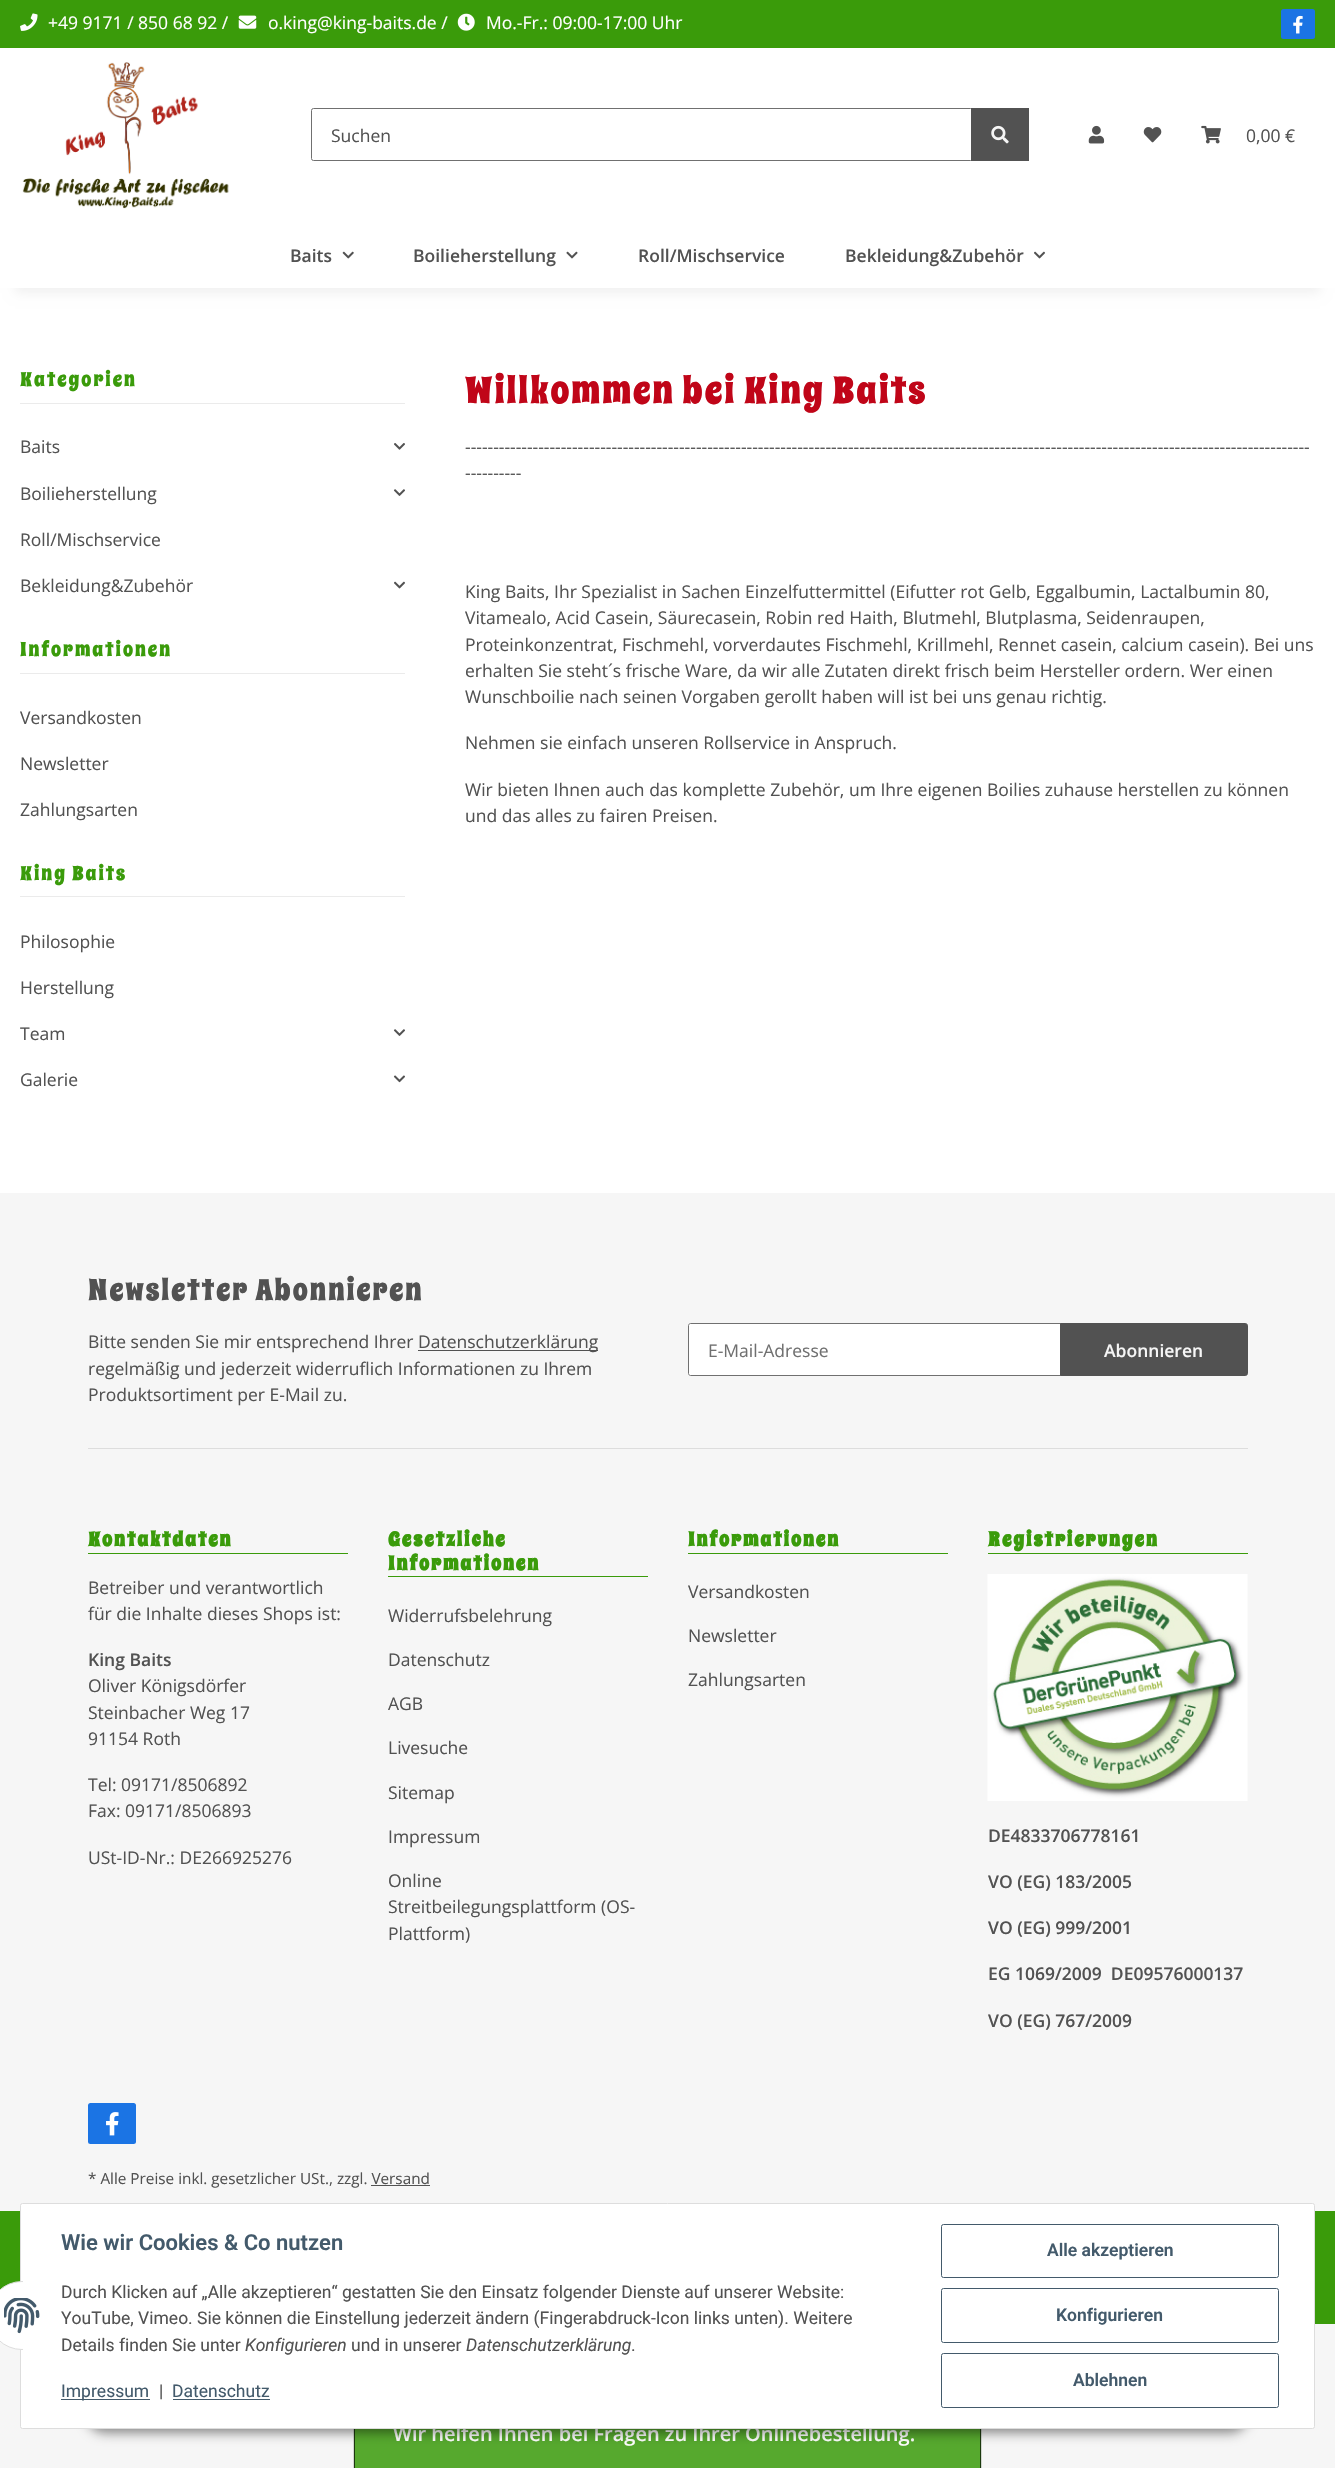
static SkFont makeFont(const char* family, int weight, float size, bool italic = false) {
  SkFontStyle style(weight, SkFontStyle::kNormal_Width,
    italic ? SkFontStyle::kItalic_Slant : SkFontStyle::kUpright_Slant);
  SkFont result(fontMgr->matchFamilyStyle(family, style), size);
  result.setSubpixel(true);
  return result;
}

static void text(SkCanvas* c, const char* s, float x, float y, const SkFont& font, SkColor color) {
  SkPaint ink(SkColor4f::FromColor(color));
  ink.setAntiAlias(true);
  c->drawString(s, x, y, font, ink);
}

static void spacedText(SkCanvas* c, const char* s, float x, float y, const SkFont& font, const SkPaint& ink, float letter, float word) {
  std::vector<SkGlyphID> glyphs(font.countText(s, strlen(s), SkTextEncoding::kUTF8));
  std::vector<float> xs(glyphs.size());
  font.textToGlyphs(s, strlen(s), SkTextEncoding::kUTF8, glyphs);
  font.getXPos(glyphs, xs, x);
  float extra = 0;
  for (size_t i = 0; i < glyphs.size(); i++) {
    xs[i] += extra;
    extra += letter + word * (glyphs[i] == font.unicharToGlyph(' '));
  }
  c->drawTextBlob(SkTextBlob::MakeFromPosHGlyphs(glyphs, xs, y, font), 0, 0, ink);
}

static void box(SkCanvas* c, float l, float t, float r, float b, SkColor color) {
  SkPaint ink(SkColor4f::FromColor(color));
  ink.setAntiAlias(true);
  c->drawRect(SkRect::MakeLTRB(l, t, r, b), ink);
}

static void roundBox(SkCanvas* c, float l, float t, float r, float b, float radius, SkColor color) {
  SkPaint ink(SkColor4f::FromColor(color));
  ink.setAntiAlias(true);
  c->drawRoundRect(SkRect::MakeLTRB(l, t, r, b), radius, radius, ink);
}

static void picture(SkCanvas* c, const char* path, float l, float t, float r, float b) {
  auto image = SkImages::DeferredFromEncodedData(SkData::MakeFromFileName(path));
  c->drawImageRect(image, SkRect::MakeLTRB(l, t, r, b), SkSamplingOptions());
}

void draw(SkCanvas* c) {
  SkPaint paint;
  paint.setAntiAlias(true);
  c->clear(0xfff6f6f6);
  box(c, 0, 0, 1335, 48, 0xff3a9b0a);
  picture(c, "img_01.png", 20, 13, 38, 31);
  SkFont face1 = makeFont("Open Sans", 400, 17.5f);
  text(c, "+49 9171 / 850 68 92 /", 48, 29, face1, 0xffffffff);
  picture(c, "img_02.png", 238, 15, 257, 29);
  text(c, "o.king@king-baits.de /", 268, 29, face1, 0xffffffff);
  picture(c, "img_03.png", 457, 13, 475, 31);
  text(c, "Mo.-Fr.: 09:00-17:00 Uhr", 486, 29, face1, 0xffffffff);
  roundBox(c, 1281, 9, 1315, 39, 2.5f, 0xff1b74e4);
  picture(c, "img_04.png", 1293, 15, 1303, 34);
  box(c, 0, 288, 1335, 1193, 0xffffffff);
  paint.setColor(0x0f000000);
  paint.setMaskFilter(SkMaskFilter::MakeBlur(kNormal_SkBlurStyle, 5.5f));
  c->drawRect(SkRect::MakeLTRB(15, 83, 1320, 293), paint);
  paint.setMaskFilter(nullptr);
  box(c, 0, 48, 1335, 288, 0xffffffff);
  picture(c, "img_05.png", 22, 62, 229, 209);
  paint.setStyle(SkPaint::kStroke_Style);
  paint.setStrokeWidth(1);
  paint.setColor(0xff707070);
  c->drawRoundRect(SkRect::MakeLTRB(311.5f, 108.5f, 972.5f, 160.5f), 2, 2, paint);
  text(c, "Suchen", 331, 142, face1, 0xff525252);
  box(c, 971, 108, 1029, 161, 0xff525252);
  picture(c, "img_06.png", 991, 125, 1009, 144);
  picture(c, "img_07.png", 1088, 125, 1105, 144);
  picture(c, "img_08.png", 1143, 127, 1162, 143);
  picture(c, "img_09.png", 1201, 125, 1221, 144);
  text(c, "0,00 €", 1246, 142, face1, 0xff525252);
  SkFont face2 = makeFont("Open Sans", 600, 17.5f);
  text(c, "Baits", 290, 262, face2, 0xff525252);
  picture(c, "img_10.png", 342, 251, 354, 259);
  text(c, "Boilieherstellung", 413, 262, face2, 0xff525252);
  picture(c, "img_11.png", 566, 251, 578, 259);
  text(c, "Roll/Mischservice", 638, 262, face2, 0xff525252);
  text(c, "Bekleidung&Zubehör", 845, 262, face2, 0xff525252);
  picture(c, "img_12.png", 1034, 251, 1045, 259);
  box(c, 20, 403, 405, 404, 0xffebebeb);
  SkFont face3 = makeFont("Spicy Rice", 400, 20);
  paint.setStyle(SkPaint::kFill_Style);
  paint.setColor(0xff3a9b0a);
  spacedText(c, "Kategorien", 20, 386, face3, paint, 2, 0);
  text(c, "Baits", 20, 453, face1, 0xff525252);
  picture(c, "img_13.png", 394, 443, 405, 450);
  text(c, "Boilieherstellung", 20, 500, face1, 0xff525252);
  picture(c, "img_14.png", 393, 489, 405, 496);
  text(c, "Roll/Mischservice", 20, 546, face1, 0xff525252);
  text(c, "Bekleidung&Zubehör", 20, 592, face1, 0xff525252);
  picture(c, "img_12.png", 394, 581, 405, 589);
  box(c, 20, 673, 405, 674, 0xffebebeb);
  spacedText(c, "Informationen", 20, 656, face3, paint, 2, 0);
  text(c, "Versandkosten", 20, 724, face1, 0xff525252);
  text(c, "Newsletter", 20, 770, face1, 0xff525252);
  text(c, "Zahlungsarten", 20, 816, face1, 0xff525252);
  box(c, 20, 896, 405, 897, 0xffebebeb);
  spacedText(c, "King Baits", 20, 880, face3, paint, 2, 0);
  text(c, "Philosophie", 20, 948, face1, 0xff525252);
  text(c, "Herstellung", 20, 994, face1, 0xff525252);
  text(c, "Team", 20, 1040, face1, 0xff525252);
  picture(c, "img_14.png", 393, 1029, 405, 1036);
  text(c, "Galerie", 20, 1086, face1, 0xff525252);
  picture(c, "img_15.png", 393, 1075, 405, 1083);
  SkFont face4 = makeFont("Spicy Rice", 400, 37.5f);
  paint.setColor(0xffc00518);
  spacedText(c, "Willkommen bei King Baits", 465, 403, face4, paint, 2, 0);
  text(c, "------------------------------------------------------------------------------------------------------------------------------------------------------", 465, 453, face1, 0xff525252);
  text(c, "----------", 465, 479, face1, 0xff525252);
  text(c, "King Baits, Ihr Spezialist in Sachen Einzelfuttermittel (Eifutter rot Gelb, Eggalbumin, Lactalbumin 80,", 465, 598, face1, 0xff525252);
  text(c, "Vitamealo, Acid Casein, Säurecasein, Robin red Haith, Blutmehl, Blutplasma, Seidenraupen,", 465, 624, face1, 0xff525252);
  text(c, "Proteinkonzentrat, Fischmehl, vorverdautes Fischmehl, Krillmehl, Rennet casein, calcium casein). Bei uns", 465, 651, face1, 0xff525252);
  text(c, "erhalten Sie steht´s frische Ware, da wir alle Zutaten direkt frisch beim Hersteller ordern. Wer einen", 465, 677, face1, 0xff525252);
  text(c, "Wunschboilie nach seinen Vorgaben gerollt haben will ist bei uns genau richtig.", 465, 703, face1, 0xff525252);
  text(c, "Nehmen sie einfach unseren Rollservice in Anspruch.", 465, 749, face1, 0xff525252);
  text(c, "Wir bieten Ihnen auch das komplette Zubehör, um Ihre eigenen Boilies zuhause herstellen zu können", 465, 796, face1, 0xff525252);
  text(c, "und das alles zu fairen Preisen.", 465, 822, face1, 0xff525252);
  SkFont face5 = makeFont("Spicy Rice", 400, 30);
  paint.setColor(0xff525252);
  spacedText(c, "Newsletter Abonnieren", 88, 1300, face5, paint, 2, 0);
  text(c, "Bitte senden Sie mir entsprechend Ihrer", 88, 1348, face1, 0xff525252);
  box(c, 418, 1350, 598, 1351, 0xff525252);
  text(c, "Datenschutzerklärung", 418, 1348, face1, 0xff525252);
  text(c, "regelmäßig und jederzeit widerruflich Informationen zu Ihrem", 88, 1375, face1, 0xff525252);
  text(c, "Produktsortiment per E-Mail zu.", 88, 1401, face1, 0xff525252);
  paint.setColor(0xffffffff);
  c->drawPath(SkPathBuilder().moveTo(690, 1324).lineTo(1060, 1324).lineTo(1060, 1375).lineTo(690, 1375).cubicTo(689.5f, 1375, 689, 1374.5f, 689, 1374).lineTo(689, 1325).cubicTo(689, 1324.5f, 689.5f, 1324, 690, 1324).close().detach(), paint);
  paint.setStyle(SkPaint::kStroke_Style);
  paint.setColor(0xff707070);
  c->drawPath(SkPathBuilder().moveTo(690.5f, 1323.5f).lineTo(1060.5f, 1323.5f).lineTo(1060.5f, 1375.5f).lineTo(690.5f, 1375.5f).cubicTo(689.5f, 1375.5f, 688.5f, 1374.5f, 688.5f, 1373.5f).lineTo(688.5f, 1325.5f).cubicTo(688.5f, 1324.5f, 689.5f, 1323.5f, 690.5f, 1323.5f).close().detach(), paint);
  text(c, "E-Mail-Adresse", 708, 1357, face1, 0xff707070);
  paint.setStyle(SkPaint::kFill_Style);
  paint.setColor(0xff525252);
  c->drawPath(SkPathBuilder().moveTo(1060.5f, 1323.5f).lineTo(1245.5f, 1323.5f).cubicTo(1246.5f, 1323.5f, 1247.5f, 1324.5f, 1247.5f, 1325.5f).lineTo(1247.5f, 1373.5f).cubicTo(1247.5f, 1374.5f, 1246.5f, 1375.5f, 1245.5f, 1375.5f).lineTo(1060.5f, 1375.5f).close().detach(), paint);
  paint.setStyle(SkPaint::kStroke_Style);
  c->drawPath(SkPathBuilder().moveTo(1060.5f, 1323.5f).lineTo(1245.5f, 1323.5f).cubicTo(1246.5f, 1323.5f, 1247.5f, 1324.5f, 1247.5f, 1325.5f).lineTo(1247.5f, 1373.5f).cubicTo(1247.5f, 1374.5f, 1246.5f, 1375.5f, 1245.5f, 1375.5f).lineTo(1060.5f, 1375.5f).close().detach(), paint);
  text(c, "Abonnieren", 1104, 1357, face2, 0xfff6f6f6);
  box(c, 88, 1448, 1248, 1449, 0xffdddddd);
  box(c, 88, 1553, 348, 1554, 0xff3a9b0a);
  SkFont face6 = makeFont("Spicy Rice", 700, 20);
  paint.setStyle(SkPaint::kFill_Style);
  paint.setColor(0xff3a9b0a);
  spacedText(c, "Kontaktdaten", 88, 1546, face6, paint, 2, 0);
  text(c, "Betreiber und verantwortlich", 88, 1594, face1, 0xff525252);
  text(c, "für die Inhalte dieses Shops ist:", 88, 1620, face1, 0xff525252);
  text(c, "King Baits", 88, 1666, face2, 0xff525252);
  text(c, "Oliver Königsdörfer", 88, 1692, face1, 0xff525252);
  text(c, "Steinbacher Weg 17", 88, 1719, face1, 0xff525252);
  text(c, "91154 Roth", 88, 1745, face1, 0xff525252);
  text(c, "Tel: 09171/8506892", 88, 1791, face1, 0xff525252);
  text(c, "Fax: 09171/8506893", 88, 1817, face1, 0xff525252);
  text(c, "USt-ID-Nr.: DE266925276", 88, 1864, face1, 0xff525252);
  box(c, 388, 1576, 648, 1577, 0xff3a9b0a);
  spacedText(c, "Gesetzliche", 388, 1546, face6, paint, 2, 0);
  spacedText(c, "Informationen", 388, 1570, face6, paint, 2, 0);
  text(c, "Widerrufsbelehrung", 388, 1622, face1, 0xff525252);
  text(c, "Datenschutz", 388, 1666, face1, 0xff525252);
  text(c, "AGB", 388, 1710, face1, 0xff525252);
  text(c, "Livesuche", 388, 1754, face1, 0xff525252);
  text(c, "Sitemap", 388, 1799, face1, 0xff525252);
  text(c, "Impressum", 388, 1843, face1, 0xff525252);
  text(c, "Online", 388, 1887, face1, 0xff525252);
  text(c, "Streitbeilegungsplattform (OS-", 388, 1913, face1, 0xff525252);
  text(c, "Plattform)", 388, 1940, face1, 0xff525252);
  box(c, 688, 1553, 948, 1554, 0xff3a9b0a);
  spacedText(c, "Informationen", 688, 1546, face6, paint, 2, 0);
  text(c, "Versandkosten", 688, 1598, face1, 0xff525252);
  text(c, "Newsletter", 688, 1642, face1, 0xff525252);
  text(c, "Zahlungsarten", 688, 1686, face1, 0xff525252);
  box(c, 988, 1553, 1248, 1554, 0xff3a9b0a);
  spacedText(c, "Registrierungen", 988, 1546, face6, paint, 2, 0);
  picture(c, "img_16.png", 987, 1574, 1248, 1801);
  text(c, "DE4833706778161", 988, 1842, face2, 0xff525252);
  text(c, "VO (EG) 183/2005", 988, 1888, face2, 0xff525252);
  text(c, "VO (EG) 999/2001", 988, 1934, face2, 0xff525252);
  text(c, "EG 1069/2009  DE09576000137", 988, 1980, face2, 0xff525252);
  text(c, "VO (EG) 767/2009", 988, 2027, face2, 0xff525252);
  roundBox(c, 88, 2103, 136, 2144, 2.5f, 0xff1b74e4);
  picture(c, "img_17.png", 106, 2112, 119, 2136);
  SkFont face7 = makeFont("Open Sans", 400, 15.3f);
  text(c, "* Alle Preise inkl. gesetzlicher USt., zzgl. Versand", 88, 2184, face7, 0xff525252);
  box(c, 371, 2185, 430, 2186, 0xff525252);
  box(c, 0, 2211, 1335, 2324, 0xff3a9b0a);
  c->save();
  c->clipPath(SkPathBuilder(SkPathFillType::kEvenOdd).moveTo(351, 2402).lineTo(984, 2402).lineTo(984, 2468).lineTo(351, 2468).close().moveTo(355, 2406).lineTo(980, 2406).lineTo(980, 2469).lineTo(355, 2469).close().detach(), true);
  paint.setColor(0xff1c390e);
  paint.setMaskFilter(SkMaskFilter::MakeBlur(kNormal_SkBlurStyle, 0.5f));
  c->drawRect(SkRect::MakeLTRB(354, 2405, 981, 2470), paint);
  paint.setMaskFilter(nullptr);
  c->restore();
  box(c, 355, 2429, 980, 2468, 0xd93a9b0a);
  SkFont face8 = makeFont("Open Sans", 600, 20);
  text(c, "Wir helfen Ihnen bei Fragen zu Ihrer Onlinebestellung.", 393, 2441, face8, 0xffffffff);
  paint.setColor(0x73000000);
  paint.setMaskFilter(SkMaskFilter::MakeBlur(kNormal_SkBlurStyle, 6));
  c->drawRoundRect(SkRect::MakeLTRB(86, 2393, 1249, 2433), 20, 20, paint);
  paint.setMaskFilter(nullptr);
  paint.setColor(0xffffffff);
  c->drawRoundRect(SkRect::MakeLTRB(20.5f, 2203.5f, 1314.5f, 2428.5f), 2, 2, paint);
  paint.setStyle(SkPaint::kStroke_Style);
  paint.setColor(0xffdddddd);
  c->drawRoundRect(SkRect::MakeLTRB(20.5f, 2203.5f, 1314.5f, 2428.5f), 2, 2, paint);
  paint.setStyle(SkPaint::kFill_Style);
  paint.setColor(0xffffffff);
  c->drawRoundRect(SkRect::MakeLTRB(-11.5f, 2281.5f, 55.5f, 2349.5f), 33.5f, 33.5f, paint);
  paint.setStyle(SkPaint::kStroke_Style);
  paint.setColor(0xffdddddd);
  c->drawRoundRect(SkRect::MakeLTRB(-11.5f, 2281.5f, 55.5f, 2349.5f), 33.5f, 33.5f, paint);
  box(c, 23, 2281, 56, 2350, 0xffffffff);
  picture(c, "img_18.png", 4, 2298, 40, 2334);
  SkFont face9 = makeFont("Roboto", 600, 22);
  text(c, "Wie wir Cookies & Co nutzen", 61, 2250, face9, 0xff435a6b);
  SkFont face10 = makeFont("Roboto", 400, 17.5f);
  text(c, "Durch Klicken auf „Alle akzeptieren“ gestatten Sie den Einsatz folgender Dienste auf unserer Website:", 61, 2298, face10, 0xff525252);
  text(c, "YouTube, Vimeo. Sie können die Einstellung jederzeit ändern (Fingerabdruck-Icon links unten). Weitere", 61, 2324, face10, 0xff525252);
  text(c, "Details finden Sie unter", 61, 2351, face10, 0xff525252);
  SkFont face11 = makeFont("Roboto", 400, 17.5f, true);
  text(c, "Konfigurieren", 245, 2351, face11, 0xff525252);
  text(c, "und in unserer", 351, 2351, face10, 0xff525252);
  text(c, "Datenschutzerklärung", 466, 2351, face11, 0xff525252);
  text(c, ".", 631, 2351, face10, 0xff525252);
  box(c, 61, 2399, 150, 2400, 0xff435a6b);
  text(c, "Impressum", 61, 2397, face10, 0xff435a6b);
  text(c, "|", 159, 2397, face10, 0xff525252);
  text(c, "Datenschutz", 172, 2397, face10, 0xff435a6b);
  box(c, 173, 2399, 270, 2400, 0xff435a6b);
  paint.setColor(0xff435a6b);
  c->drawRoundRect(SkRect::MakeLTRB(941.5f, 2224.5f, 1278.5f, 2277.5f), 2, 2, paint);
  SkFont face12 = makeFont("Roboto", 600, 17.5f);
  text(c, "Alle akzeptieren", 1047, 2256, face12, 0xff435a6b);
  c->drawRoundRect(SkRect::MakeLTRB(941.5f, 2288.5f, 1278.5f, 2342.5f), 2, 2, paint);
  text(c, "Konfigurieren", 1056, 2321, face12, 0xff435a6b);
  c->drawRoundRect(SkRect::MakeLTRB(941.5f, 2353.5f, 1278.5f, 2407.5f), 2, 2, paint);
  text(c, "Ablehnen", 1073, 2386, face12, 0xff435a6b);
}
